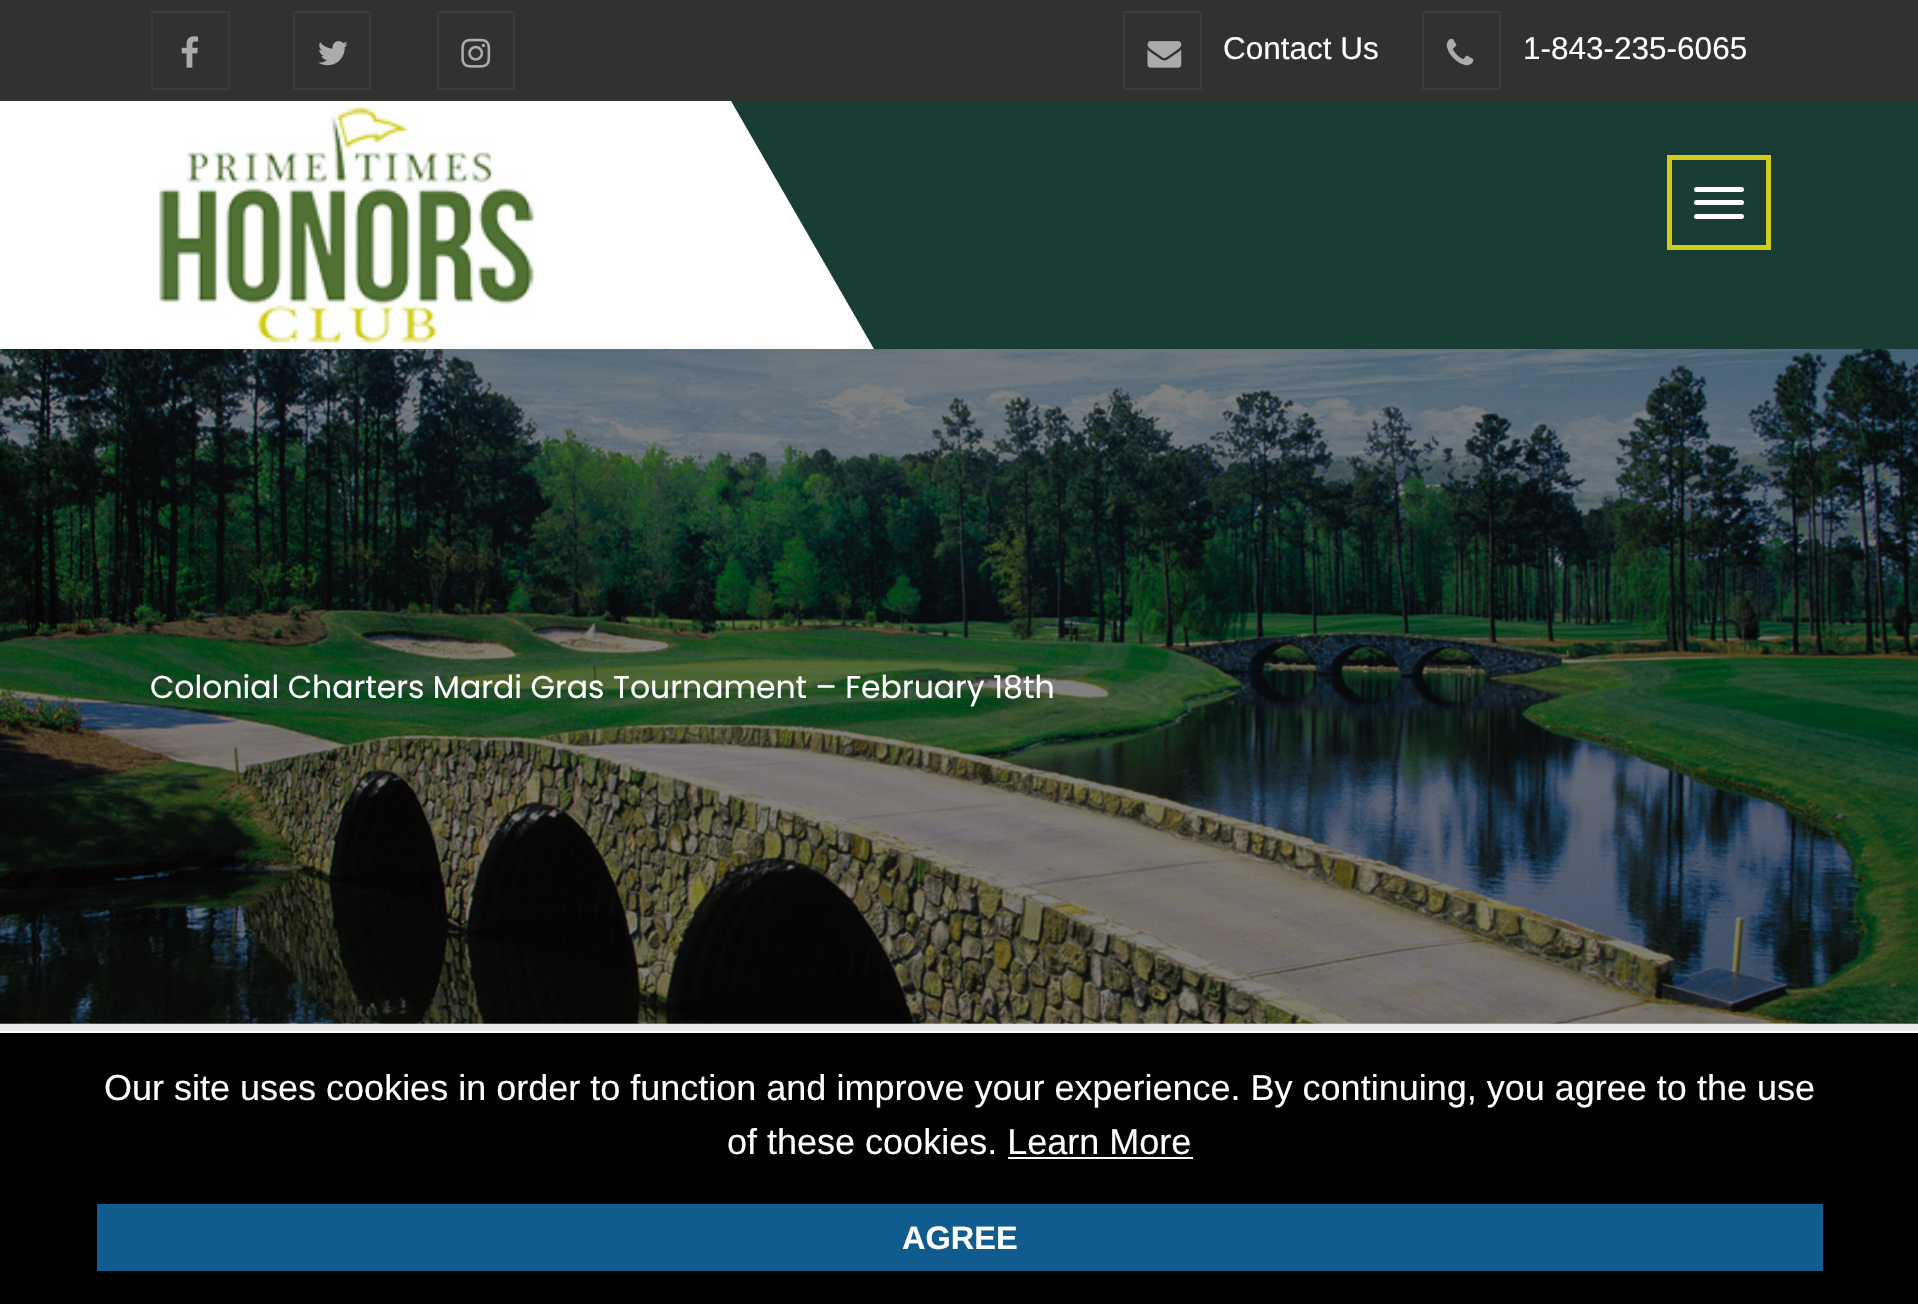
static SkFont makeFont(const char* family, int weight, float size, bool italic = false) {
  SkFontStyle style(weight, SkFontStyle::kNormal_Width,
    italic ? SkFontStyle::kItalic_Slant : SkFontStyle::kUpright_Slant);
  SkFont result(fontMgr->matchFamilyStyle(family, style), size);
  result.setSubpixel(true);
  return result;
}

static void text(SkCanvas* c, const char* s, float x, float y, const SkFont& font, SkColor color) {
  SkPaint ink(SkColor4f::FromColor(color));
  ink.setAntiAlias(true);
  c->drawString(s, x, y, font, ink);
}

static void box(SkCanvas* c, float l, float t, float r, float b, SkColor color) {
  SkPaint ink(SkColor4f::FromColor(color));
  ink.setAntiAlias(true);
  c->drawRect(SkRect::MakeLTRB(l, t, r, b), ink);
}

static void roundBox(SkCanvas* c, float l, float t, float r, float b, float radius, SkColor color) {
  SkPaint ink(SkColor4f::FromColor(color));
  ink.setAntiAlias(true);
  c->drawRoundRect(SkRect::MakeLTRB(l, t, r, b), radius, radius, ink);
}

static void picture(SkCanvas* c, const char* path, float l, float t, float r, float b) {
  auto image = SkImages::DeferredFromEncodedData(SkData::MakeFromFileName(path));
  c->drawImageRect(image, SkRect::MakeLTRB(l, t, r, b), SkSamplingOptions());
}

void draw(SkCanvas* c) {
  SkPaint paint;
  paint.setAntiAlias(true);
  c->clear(0xffffffff);
  box(c, 0, 0, 1918, 101, 0xff313230);
  paint.setStyle(SkPaint::kStroke_Style);
  paint.setStrokeWidth(2);
  paint.setColor(0xff3b3c3a);
  c->drawRect(SkRect::MakeLTRB(152, 12, 229, 89), paint);
  picture(c, "img_01.png", 181, 36, 199, 68);
  c->drawRect(SkRect::MakeLTRB(294, 12, 370, 89), paint);
  picture(c, "img_02.png", 318, 41, 348, 66);
  c->drawRect(SkRect::MakeLTRB(438, 12, 514, 89), paint);
  picture(c, "img_03.png", 461, 38, 491, 68);
  c->drawRect(SkRect::MakeLTRB(1124, 12, 1201, 89), paint);
  picture(c, "img_04.png", 1147, 41, 1182, 68);
  SkFont face1 = makeFont("Liberation Sans", 400, 31.5f);
  text(c, "Contact Us", 1223, 59, face1, 0xffffffff);
  c->drawRect(SkRect::MakeLTRB(1423, 12, 1500, 89), paint);
  picture(c, "img_05.png", 1446, 38, 1474, 66);
  text(c, "1-843-235-6065", 1523, 59, face1, 0xffffffff);
  box(c, 731, 101, 1918, 349, 0xff173d34);
  paint.setStyle(SkPaint::kFill_Style);
  paint.setColor(0xffffffff);
  c->drawPath(SkPathBuilder().moveTo(299, 101).lineTo(731, 101).lineTo(874, 349).lineTo(442, 349).close().detach(), paint);
  picture(c, "img_06.png", 159, 107, 534, 343);
  paint.setStyle(SkPaint::kStroke_Style);
  paint.setStrokeWidth(5);
  paint.setColor(0xffcfcd1a);
  c->drawRect(SkRect::MakeLTRB(1669.5f, 157.5f, 1768.5f, 247.5f), paint);
  roundBox(c, 1694, 187, 1744, 192, 2.5f, 0xffffffff);
  roundBox(c, 1694, 200, 1744, 205, 2.5f, 0xffffffff);
  roundBox(c, 1694, 214, 1744, 219, 2.5f, 0xffffffff);
  picture(c, "img_07.png", 0, 349, 1918, 1024);
  SkFont face2 = makeFont("Poppins", 400, 31.5f);
  text(c, "Colonial Charters Mardi Gras Tournament – February 18th", 150, 698, face2, 0xffffffff);
  box(c, 0, 1024, 1918, 1031, 0xffe8e9e9);
  box(c, 0, 1033, 1918, 1304, 0xff000000);
  SkFont face3 = makeFont("Liberation Sans", 400, 36);
  text(c, "Our site uses cookies in order to function and improve your experience. By continuing, you agree to the use", 104, 1100, face3, 0xffffffff);
  text(c, "of these cookies. Learn More", 727, 1154, face3, 0xffffffff);
  box(c, 1008, 1157, 1193, 1159, 0xffffffff);
  box(c, 97, 1204, 1823, 1271, 0xff115c8e);
  SkFont face4 = makeFont("Liberation Sans", 700, 32.5f);
  text(c, "AGREE", 902, 1249, face4, 0xffffffff);
}
